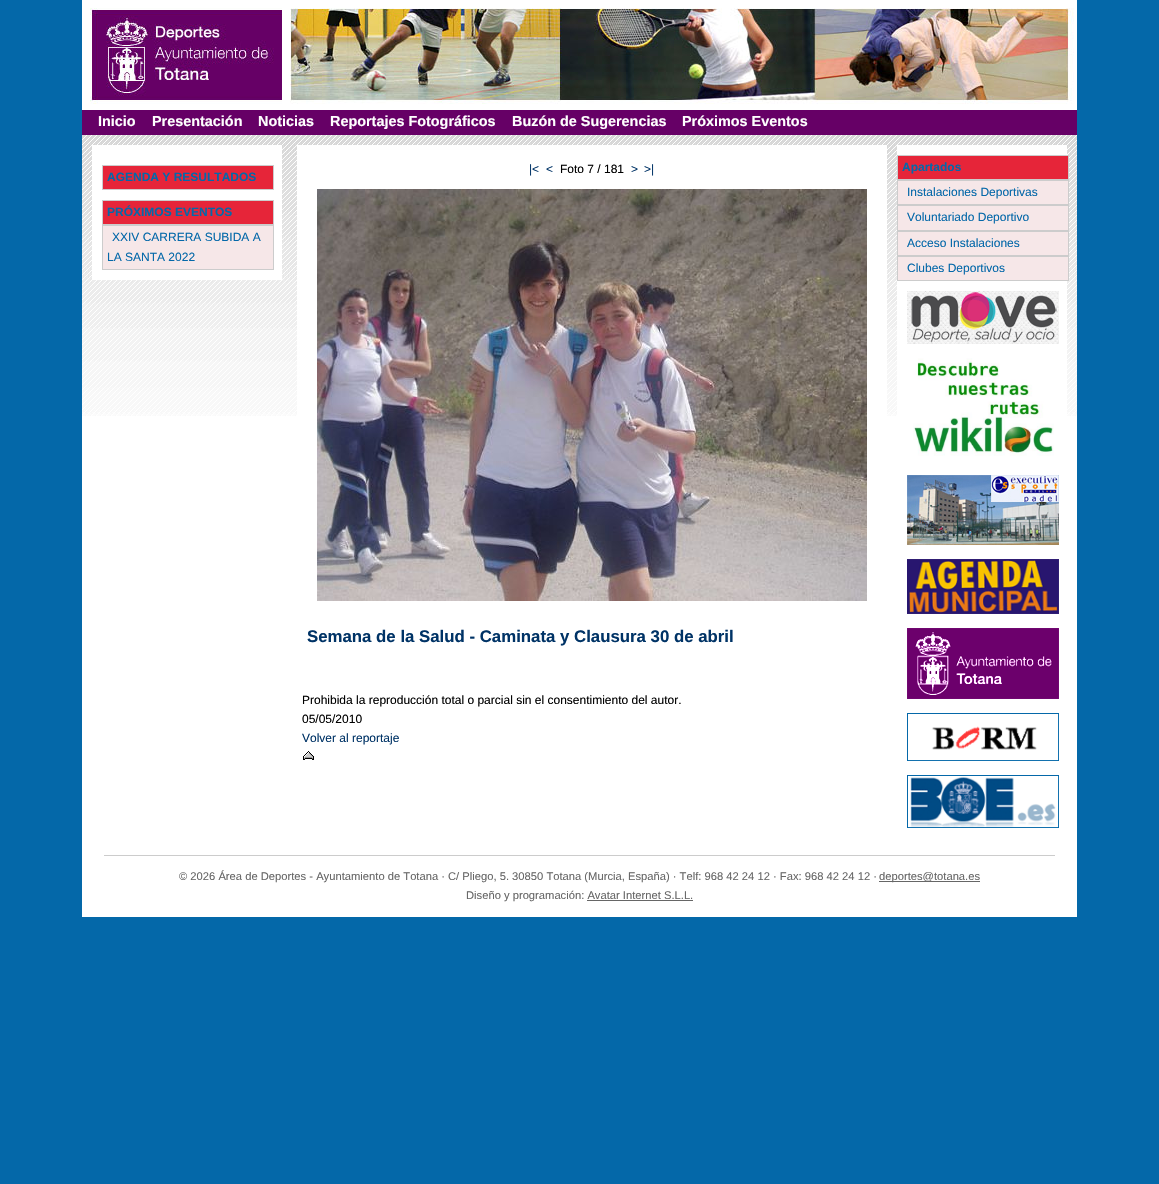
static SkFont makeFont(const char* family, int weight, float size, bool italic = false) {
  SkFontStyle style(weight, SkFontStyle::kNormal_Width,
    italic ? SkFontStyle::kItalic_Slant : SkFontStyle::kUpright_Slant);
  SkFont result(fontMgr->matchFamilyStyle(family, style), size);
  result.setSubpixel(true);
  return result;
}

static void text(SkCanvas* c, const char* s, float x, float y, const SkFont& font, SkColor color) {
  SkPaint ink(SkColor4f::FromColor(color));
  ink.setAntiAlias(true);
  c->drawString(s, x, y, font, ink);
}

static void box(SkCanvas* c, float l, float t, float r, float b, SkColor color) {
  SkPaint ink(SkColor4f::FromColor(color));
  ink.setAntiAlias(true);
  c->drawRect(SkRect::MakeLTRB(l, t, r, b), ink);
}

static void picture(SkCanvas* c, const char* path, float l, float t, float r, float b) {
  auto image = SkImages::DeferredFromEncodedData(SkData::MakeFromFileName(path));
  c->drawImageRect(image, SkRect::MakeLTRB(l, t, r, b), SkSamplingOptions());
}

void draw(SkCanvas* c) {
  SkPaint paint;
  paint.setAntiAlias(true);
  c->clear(0xff0468a9);
  box(c, 82, 416, 1077, 917, 0xffffffff);
  picture(c, "img_01.png", 82, 135, 1077, 416);
  picture(c, "img_02.png", 82, 0, 1077, 110);
  box(c, 82, 110, 1077, 135, 0xff660066);
  SkFont face1 = makeFont("Liberation Sans", 700, 14.4f);
  text(c, "Inicio", 98, 126, face1, 0xffffffff);
  text(c, "Presentación", 152, 126, face1, 0xffffffff);
  text(c, "Noticias", 258, 126, face1, 0xffffffff);
  text(c, "Reportajes Fotográficos", 330, 126, face1, 0xffffffff);
  text(c, "Buzón de Sugerencias", 512, 126, face1, 0xffffffff);
  text(c, "Próximos Eventos", 682, 126, face1, 0xffffffff);
  box(c, 92, 145, 282, 280, 0xffffffff);
  paint.setColor(0xffe62539);
  c->drawRect(SkRect::MakeLTRB(102.5f, 165.5f, 273.5f, 189.5f), paint);
  paint.setStyle(SkPaint::kStroke_Style);
  paint.setStrokeWidth(1);
  paint.setColor(0xffcccccc);
  c->drawRect(SkRect::MakeLTRB(102.5f, 165.5f, 273.5f, 189.5f), paint);
  SkFont face2 = makeFont("Liberation Sans", 700, 12);
  text(c, "AGENDA Y RESULTADOS", 107, 181, face2, 0xff0468a9);
  paint.setStyle(SkPaint::kFill_Style);
  paint.setColor(0xffe62539);
  c->drawRect(SkRect::MakeLTRB(102.5f, 200.5f, 273.5f, 224.5f), paint);
  paint.setStyle(SkPaint::kStroke_Style);
  paint.setColor(0xffcccccc);
  c->drawRect(SkRect::MakeLTRB(102.5f, 200.5f, 273.5f, 224.5f), paint);
  text(c, "PRÓXIMOS EVENTOS", 107, 216, face2, 0xff0468a9);
  paint.setStyle(SkPaint::kFill_Style);
  paint.setColor(0xfff6e7e8);
  c->drawRect(SkRect::MakeLTRB(102.5f, 225.5f, 273.5f, 269.5f), paint);
  paint.setStyle(SkPaint::kStroke_Style);
  paint.setColor(0xffcccccc);
  c->drawRect(SkRect::MakeLTRB(102.5f, 225.5f, 273.5f, 269.5f), paint);
  SkFont face3 = makeFont("Liberation Sans", 400, 12);
  text(c, "XXIV CARRERA SUBIDA A", 112, 241, face3, 0xff0468a9);
  text(c, "LA SANTA 2022", 107, 261, face3, 0xff0468a9);
  box(c, 897, 145, 1067, 416, 0xffffffff);
  paint.setStyle(SkPaint::kFill_Style);
  paint.setColor(0xffe62539);
  c->drawRect(SkRect::MakeLTRB(897.5f, 155.5f, 1068.5f, 179.5f), paint);
  paint.setStyle(SkPaint::kStroke_Style);
  paint.setColor(0xffcccccc);
  c->drawRect(SkRect::MakeLTRB(897.5f, 155.5f, 1068.5f, 179.5f), paint);
  text(c, "Apartados", 902, 171, face2, 0xff0468a9);
  paint.setStyle(SkPaint::kFill_Style);
  paint.setColor(0xfff6e7e8);
  c->drawRect(SkRect::MakeLTRB(897.5f, 180.5f, 1068.5f, 204.5f), paint);
  paint.setStyle(SkPaint::kStroke_Style);
  paint.setColor(0xffcccccc);
  c->drawRect(SkRect::MakeLTRB(897.5f, 180.5f, 1068.5f, 204.5f), paint);
  text(c, "Instalaciones Deportivas", 907, 196, face3, 0xff0468a9);
  paint.setStyle(SkPaint::kFill_Style);
  paint.setColor(0xfff6e7e8);
  c->drawRect(SkRect::MakeLTRB(897.5f, 205.5f, 1068.5f, 230.5f), paint);
  paint.setStyle(SkPaint::kStroke_Style);
  paint.setColor(0xffcccccc);
  c->drawRect(SkRect::MakeLTRB(897.5f, 205.5f, 1068.5f, 230.5f), paint);
  text(c, "Voluntariado Deportivo", 907, 221, face3, 0xff0468a9);
  paint.setStyle(SkPaint::kFill_Style);
  paint.setColor(0xfff6e7e8);
  c->drawRect(SkRect::MakeLTRB(897.5f, 231.5f, 1068.5f, 255.5f), paint);
  paint.setStyle(SkPaint::kStroke_Style);
  paint.setColor(0xffcccccc);
  c->drawRect(SkRect::MakeLTRB(897.5f, 231.5f, 1068.5f, 255.5f), paint);
  text(c, "Acceso Instalaciones", 907, 247, face3, 0xff0468a9);
  paint.setStyle(SkPaint::kFill_Style);
  paint.setColor(0xfff6e7e8);
  c->drawRect(SkRect::MakeLTRB(897.5f, 256.5f, 1068.5f, 280.5f), paint);
  paint.setStyle(SkPaint::kStroke_Style);
  paint.setColor(0xffcccccc);
  c->drawRect(SkRect::MakeLTRB(897.5f, 256.5f, 1068.5f, 280.5f), paint);
  text(c, "Clubes Deportivos", 907, 272, face3, 0xff0468a9);
  picture(c, "img_03.png", 907, 291, 1059, 344);
  picture(c, "img_04.png", 913, 358, 1054, 456);
  picture(c, "img_05.png", 907, 475, 1059, 545);
  picture(c, "img_06.png", 907, 559, 1059, 614);
  picture(c, "img_07.png", 907, 628, 1059, 699);
  picture(c, "img_08.png", 907, 713, 1059, 761);
  picture(c, "img_09.png", 907, 775, 1059, 828);
  box(c, 297, 145, 887, 416, 0xffffffff);
  text(c, "|<", 529, 173, face3, 0xff003366);
  text(c, "<", 546, 173, face3, 0xff003366);
  text(c, "Foto 7 / 181", 560, 173, face3, 0xff000000);
  text(c, ">", 631, 173, face3, 0xff003366);
  text(c, ">|", 644, 173, face3, 0xff003366);
  picture(c, "img_10.png", 317, 189, 867, 601);
  SkFont face4 = makeFont("Liberation Sans", 700, 16.8f);
  text(c, "Semana de la Salud - Caminata y Clausura 30 de abril", 307, 642, face4, 0xff003366);
  text(c, "Prohibida la reproducción total o parcial sin el consentimiento del autor.", 302, 704, face3, 0xff000000);
  text(c, "05/05/2010", 302, 723, face3, 0xff000000);
  text(c, "Volver al reportaje", 302, 742, face3, 0xff003366);
  picture(c, "img_11.png", 303, 751, 314, 760);
  box(c, 104, 855, 1055, 856, 0xffcccccc);
  SkFont face5 = makeFont("Liberation Sans", 400, 11.2f);
  text(c, "© 2026 Área de Deportes - Ayuntamiento de Totana ·", 179, 880, face5, 0xff666666);
  text(c, "C/ Pliego, 5. 30850 Totana (Murcia, España) · Telf: 968 42 24 12 · Fax: 968 42 24 12 ·", 448, 880, face5, 0xff666666);
  box(c, 879, 881, 980, 882, 0xff666666);
  text(c, "deportes@totana.es", 879, 880, face5, 0xff666666);
  text(c, "Diseño y programación: Avatar Internet S.L.L.", 466, 899, face5, 0xff666666);
  box(c, 587, 900, 693, 901, 0xff666666);
}
